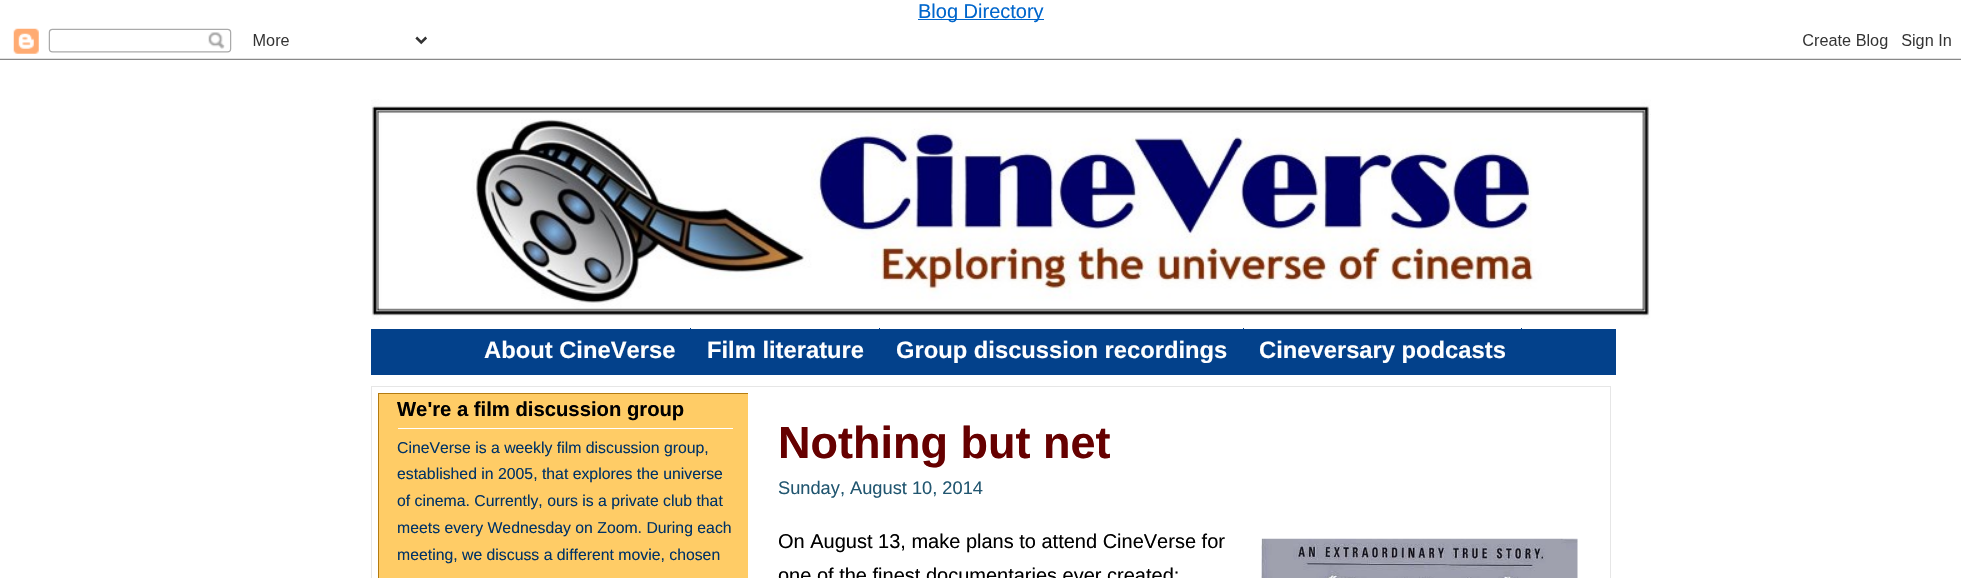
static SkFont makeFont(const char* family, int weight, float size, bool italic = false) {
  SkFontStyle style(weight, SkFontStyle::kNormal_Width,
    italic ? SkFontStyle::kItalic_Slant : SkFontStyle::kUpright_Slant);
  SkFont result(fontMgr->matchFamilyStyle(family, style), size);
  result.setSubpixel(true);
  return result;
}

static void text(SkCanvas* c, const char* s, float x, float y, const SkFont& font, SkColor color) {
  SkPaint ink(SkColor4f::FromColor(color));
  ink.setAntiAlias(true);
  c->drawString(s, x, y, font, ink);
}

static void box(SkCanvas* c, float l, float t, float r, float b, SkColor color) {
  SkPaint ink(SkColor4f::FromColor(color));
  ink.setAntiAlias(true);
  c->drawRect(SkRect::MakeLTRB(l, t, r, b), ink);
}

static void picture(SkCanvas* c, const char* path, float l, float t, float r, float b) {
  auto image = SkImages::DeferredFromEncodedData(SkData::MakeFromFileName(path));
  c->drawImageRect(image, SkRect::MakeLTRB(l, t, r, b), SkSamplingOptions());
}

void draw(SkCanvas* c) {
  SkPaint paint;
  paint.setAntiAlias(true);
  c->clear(0xffffffff);
  box(c, 918, 19, 1044, 20, 0xff0066cc);
  SkFont face1 = makeFont("Liberation Sans", 400, 20);
  text(c, "Blog Directory", 918, 18, face1, 0xff0066cc);
  picture(c, "img_01.png", 0, 28, 1961, 60);
  picture(c, "img_02.png", 371, 99, 1651, 319);
  box(c, 371, 329, 1616, 375, 0xff03418b);
  SkFont face2 = makeFont("Liberation Sans", 700, 23.75f);
  text(c, "About CineVerse", 484, 358, face2, 0xffffffff);
  box(c, 690, 328, 691, 329, 0xff03418b);
  text(c, "Film literature", 707, 358, face2, 0xffffffff);
  box(c, 879, 328, 880, 329, 0xff03418b);
  text(c, "Group discussion recordings", 896, 358, face2, 0xffffffff);
  box(c, 1243, 328, 1244, 329, 0xff03418b);
  text(c, "Cineversary podcasts", 1259, 358, face2, 0xffffffff);
  box(c, 1521, 328, 1522, 329, 0xff03418b);
  paint.setStyle(SkPaint::kStroke_Style);
  paint.setStrokeWidth(1);
  paint.setColor(0xffe6e6e6);
  c->drawRect(SkRect::MakeLTRB(371.5f, 386.5f, 1610.5f, 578.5f), paint);
  box(c, 379, 394, 748, 578, 0xffffcc66);
  c->save();
  c->clipRect(SkRect::MakeLTRB(373, 393, 748, 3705));
  paint.setColor(0xffb47b10);
  c->drawRect(SkRect::MakeLTRB(378.5f, 393.5f, 752.5f, 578.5f), paint);
  c->restore();
  box(c, 398, 428, 733, 429, 0xffffffff);
  SkFont face3 = makeFont("Liberation Sans", 700, 20.25f);
  text(c, "We're a film discussion group", 397, 416, face3, 0xff000000);
  SkFont face4 = makeFont("Liberation Sans", 400, 15.8f);
  text(c, "CineVerse is a weekly film discussion group,", 397, 453, face4, 0xff003366);
  text(c, "established in 2005, that explores the universe", 397, 479, face4, 0xff003366);
  text(c, "of cinema. Currently, ours is a private club that", 397, 506, face4, 0xff003366);
  text(c, "meets every Wednesday on Zoom. During each", 397, 533, face4, 0xff003366);
  text(c, "meeting, we discuss a different movie, chosen", 397, 560, face4, 0xff003366);
  SkFont face5 = makeFont("Liberation Sans", 700, 45);
  text(c, "Nothing but net", 778, 458, face5, 0xff660000);
  SkFont face6 = makeFont("Liberation Sans", 400, 18.25f);
  text(c, "Sunday, August 10, 2014", 778, 494, face6, 0xff215670);
  text(c, "On August 13, make plans to attend CineVerse for", 778, 548, face1, 0xff000000);
  picture(c, "img_03.png", 1261, 538, 1578, 578);
  text(c, "one of the finest documentaries ever created:", 778, 582, face1, 0xff000000);
}
